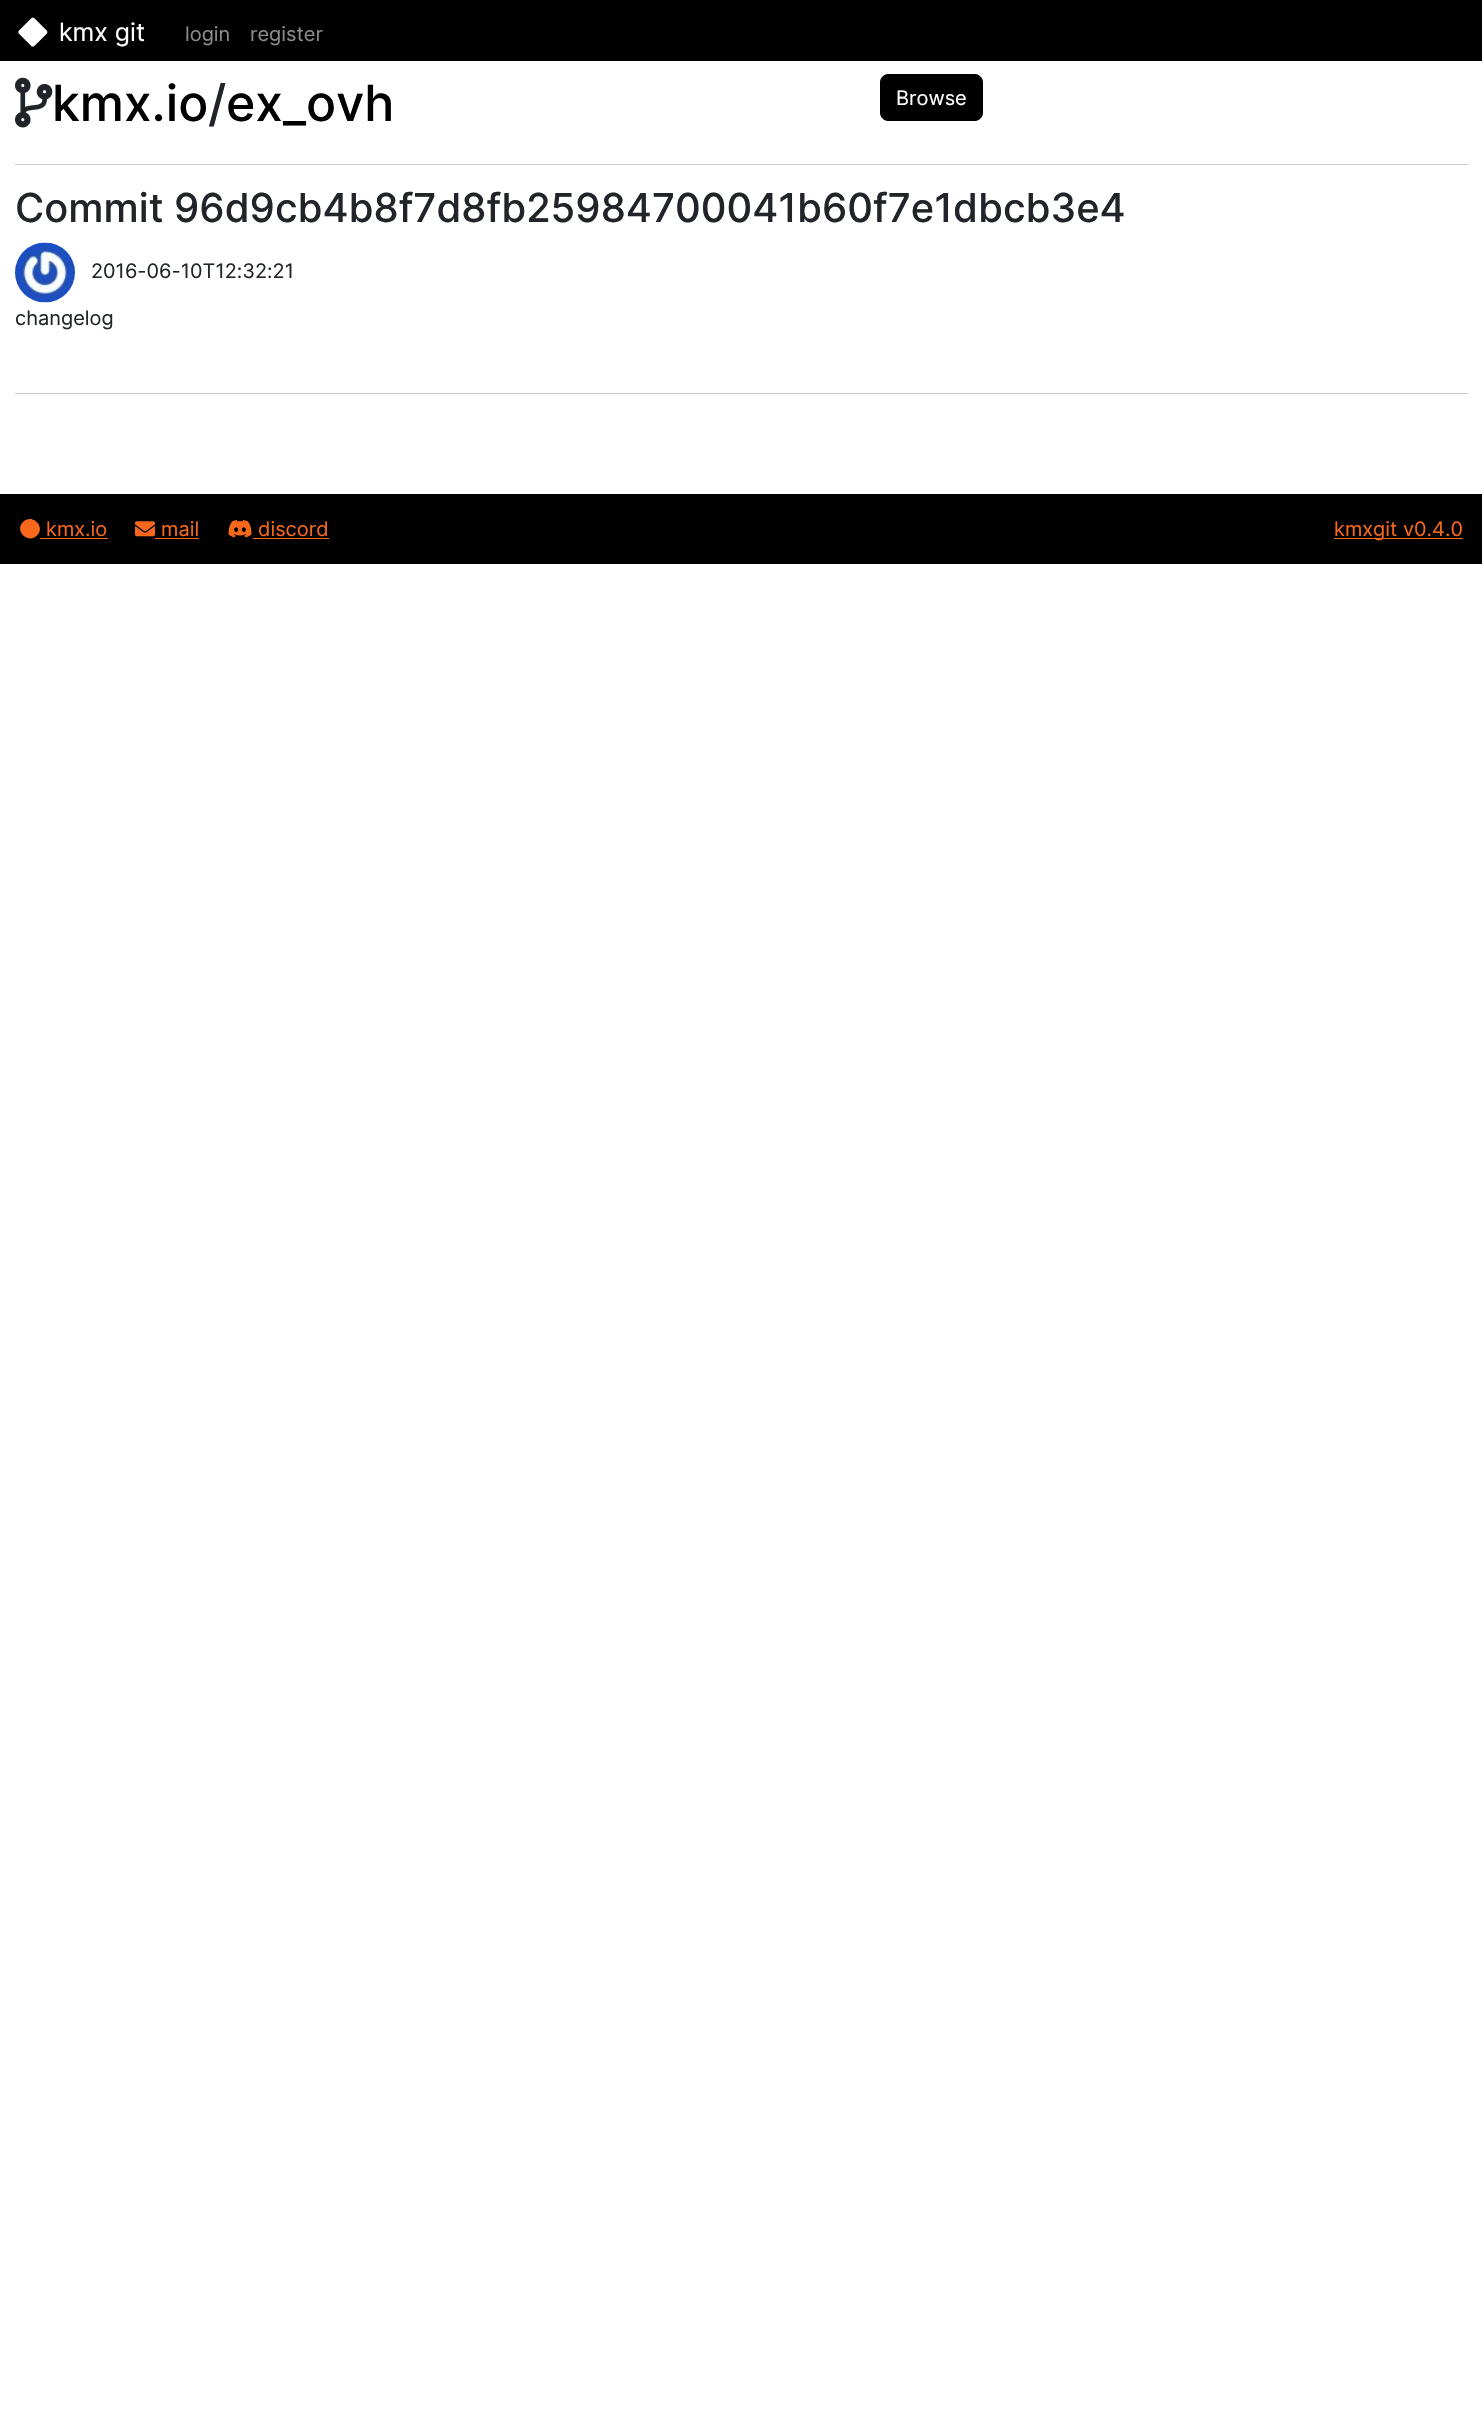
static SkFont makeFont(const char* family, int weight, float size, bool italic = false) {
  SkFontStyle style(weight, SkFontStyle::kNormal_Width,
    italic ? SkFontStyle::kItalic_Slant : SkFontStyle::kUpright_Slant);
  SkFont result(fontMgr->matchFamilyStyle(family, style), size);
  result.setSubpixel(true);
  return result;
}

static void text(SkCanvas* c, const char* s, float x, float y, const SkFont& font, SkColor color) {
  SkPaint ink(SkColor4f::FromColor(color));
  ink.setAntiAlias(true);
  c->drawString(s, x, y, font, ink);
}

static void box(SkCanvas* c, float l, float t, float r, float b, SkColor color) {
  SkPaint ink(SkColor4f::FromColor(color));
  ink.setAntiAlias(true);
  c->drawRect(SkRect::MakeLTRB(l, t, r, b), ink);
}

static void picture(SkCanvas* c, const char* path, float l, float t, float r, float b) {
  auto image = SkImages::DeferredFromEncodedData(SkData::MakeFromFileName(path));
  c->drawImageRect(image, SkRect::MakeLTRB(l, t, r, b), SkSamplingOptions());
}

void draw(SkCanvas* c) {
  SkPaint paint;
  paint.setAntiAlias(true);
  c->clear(0xffffffff);
  box(c, 0, 0, 1482, 61, 0xff000000);
  picture(c, "img_01.png", 18, 17, 48, 47);
  SkFont face1 = makeFont("Inter", 400, 25);
  text(c, "kmx git", 59, 41, face1, 0xffffffff);
  SkFont face2 = makeFont("Inter", 400, 20);
  text(c, "login", 185, 41, face2, 0xff8c8c8c);
  text(c, "register", 250, 41, face2, 0xff8c8c8c);
  picture(c, "img_02.png", 15, 77, 53, 128);
  SkFont face3 = makeFont("Inter", 500, 50);
  text(c, "kmx.io", 52, 121, face3, 0xff000000);
  text(c, "/", 208, 121, face3, 0xff212529);
  text(c, "ex_ovh", 226, 121, face3, 0xff000000);
  paint.setColor(0xff000000);
  c->drawRoundRect(SkRect::MakeLTRB(880.5f, 74.5f, 982.5f, 120.5f), 7.5f, 7.5f, paint);
  paint.setStyle(SkPaint::kStroke_Style);
  paint.setStrokeWidth(1);
  c->drawRoundRect(SkRect::MakeLTRB(880.5f, 74.5f, 982.5f, 120.5f), 7.5f, 7.5f, paint);
  text(c, "Browse", 896, 105, face2, 0xffffffff);
  box(c, 15, 164, 1468, 165, 0xffc8c9ca);
  SkFont face4 = makeFont("Inter", 500, 39.85f);
  text(c, "Commit 96d9cb4b8f7d8fb25984700041b60f7e1dbcb3e4", 15, 222, face4, 0xff212529);
  picture(c, "img_03.png", 15, 242, 75, 303);
  text(c, "2016-06-10T12:32:21", 91, 278, face2, 0xff212529);
  text(c, "changelog", 15, 325, face2, 0xff212529);
  box(c, 15, 393, 1468, 394, 0xffc8c9ca);
  box(c, 0, 494, 1482, 564, 0xff000000);
  paint.setStyle(SkPaint::kFill_Style);
  paint.setColor(0xfff8681c);
  c->drawPath(SkPathBuilder().moveTo(23, 522).cubicTo(32, 513, 46, 526.5f, 37, 535.5f).cubicTo(28, 544.5f, 14, 531, 23, 522).close().detach(), paint);
  text(c, "kmx.io", 46, 536, face2, 0xfff8681c);
  box(c, 40, 538, 108, 539, 0xfff8681c);
  picture(c, "img_04.png", 135, 521, 155, 537);
  text(c, "mail", 161, 536, face2, 0xfff8681c);
  box(c, 155, 538, 199, 539, 0xfff8681c);
  picture(c, "img_05.png", 228, 520, 252, 538);
  text(c, "discord", 258, 536, face2, 0xfff8681c);
  box(c, 253, 538, 329, 539, 0xfff8681c);
  box(c, 1334, 538, 1463, 539, 0xfff8681c);
  text(c, "kmxgit v0.4.0", 1334, 536, face2, 0xfff8681c);
}
